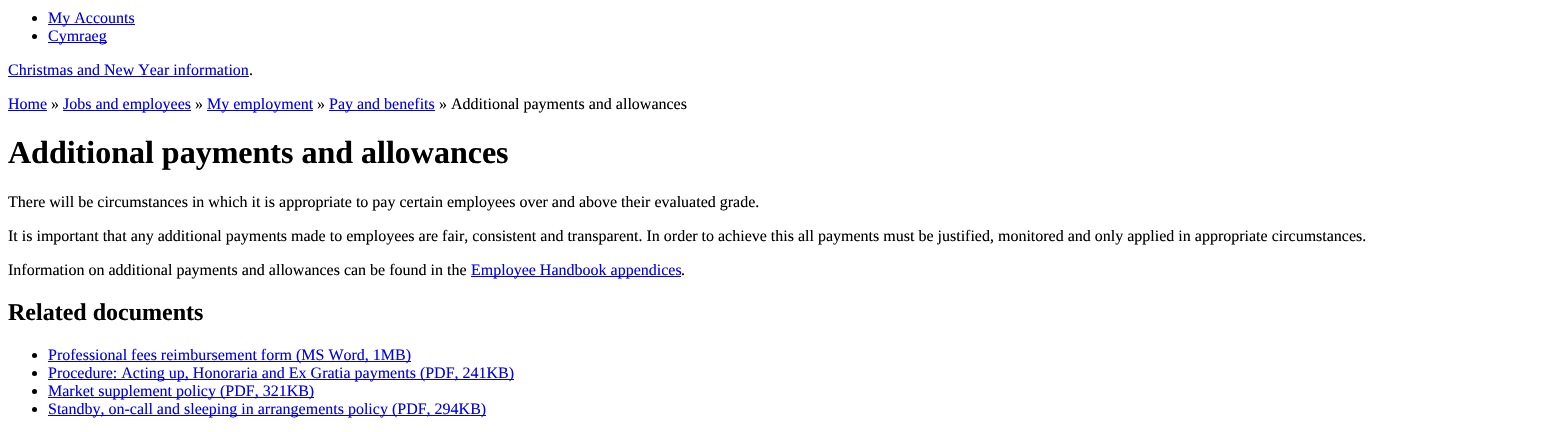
static SkFont makeFont(const char* family, int weight, float size, bool italic = false) {
  SkFontStyle style(weight, SkFontStyle::kNormal_Width,
    italic ? SkFontStyle::kItalic_Slant : SkFontStyle::kUpright_Slant);
  SkFont result(fontMgr->matchFamilyStyle(family, style), size);
  result.setSubpixel(true);
  return result;
}

static void text(SkCanvas* c, const char* s, float x, float y, const SkFont& font, SkColor color) {
  SkPaint ink(SkColor4f::FromColor(color));
  ink.setAntiAlias(true);
  c->drawString(s, x, y, font, ink);
}

static void box(SkCanvas* c, float l, float t, float r, float b, SkColor color) {
  SkPaint ink(SkColor4f::FromColor(color));
  ink.setAntiAlias(true);
  c->drawRect(SkRect::MakeLTRB(l, t, r, b), ink);
}

void draw(SkCanvas* c) {
  SkPaint paint;
  paint.setAntiAlias(true);
  c->clear(0xffffffff);
  paint.setColor(0xff000000);
  c->drawCircle(34.5f, 18.5f, 2.5f, paint);
  box(c, 48, 24, 135, 25, 0xff0000ee);
  SkFont face1 = makeFont("Liberation Serif", 400, 16);
  text(c, "My Accounts", 48, 23, face1, 0xff0000ee);
  c->drawCircle(34.5f, 36.5f, 2.5f, paint);
  box(c, 48, 42, 107, 43, 0xff0000ee);
  text(c, "Cymraeg", 48, 41, face1, 0xff0000ee);
  text(c, "Christmas and New Year information", 8, 75, face1, 0xff0000ee);
  box(c, 8, 76, 249, 77, 0xff0000ee);
  text(c, ".", 249, 75, face1, 0xff000000);
  text(c, "Home", 8, 109, face1, 0xff0000ee);
  box(c, 8, 110, 47, 111, 0xff0000ee);
  text(c, "»", 51, 109, face1, 0xff000000);
  box(c, 63, 110, 191, 111, 0xff0000ee);
  text(c, "Jobs and employees", 63, 109, face1, 0xff0000ee);
  text(c, "»", 195, 109, face1, 0xff000000);
  box(c, 207, 110, 313, 111, 0xff0000ee);
  text(c, "My employment", 207, 109, face1, 0xff0000ee);
  text(c, "»", 317, 109, face1, 0xff000000);
  box(c, 329, 110, 435, 111, 0xff0000ee);
  text(c, "Pay and benefits", 329, 109, face1, 0xff0000ee);
  text(c, "» Additional payments and allowances", 439, 109, face1, 0xff000000);
  SkFont face2 = makeFont("Liberation Serif", 700, 32);
  text(c, "Additional payments and allowances", 8, 163, face2, 0xff000000);
  text(c, "There will be circumstances in which it is appropriate to pay certain employees over and above their evaluated grade.", 8, 207, face1, 0xff000000);
  text(c, "It is important that any additional payments made to employees are fair, consistent and transparent. In order to achieve this all payments must be justified, monitored and only applied in appropriate circumstances.", 8, 241, face1, 0xff000000);
  text(c, "Information on additional payments and allowances can be found in the", 8, 275, face1, 0xff000000);
  box(c, 471, 276, 681, 277, 0xff0000ee);
  text(c, "Employee Handbook appendices", 471, 275, face1, 0xff0000ee);
  text(c, ".", 681, 275, face1, 0xff000000);
  SkFont face3 = makeFont("Liberation Serif", 700, 24);
  text(c, "Related documents", 8, 320, face3, 0xff000000);
  c->drawCircle(34.5f, 355.5f, 2.5f, paint);
  box(c, 48, 361, 411, 362, 0xff0000ee);
  text(c, "Professional fees reimbursement form (MS Word, 1MB)", 48, 360, face1, 0xff0000ee);
  c->drawCircle(34.5f, 373.5f, 2.5f, paint);
  box(c, 48, 379, 514, 380, 0xff0000ee);
  text(c, "Procedure: Acting up, Honoraria and Ex Gratia payments (PDF, 241KB)", 48, 378, face1, 0xff0000ee);
  c->drawCircle(34.5f, 391.5f, 2.5f, paint);
  box(c, 48, 397, 314, 398, 0xff0000ee);
  text(c, "Market supplement policy (PDF, 321KB)", 48, 396, face1, 0xff0000ee);
  c->drawCircle(34.5f, 409.5f, 2.5f, paint);
  box(c, 48, 415, 486, 416, 0xff0000ee);
  text(c, "Standby, on-call and sleeping in arrangements policy (PDF, 294KB)", 48, 414, face1, 0xff0000ee);
}
